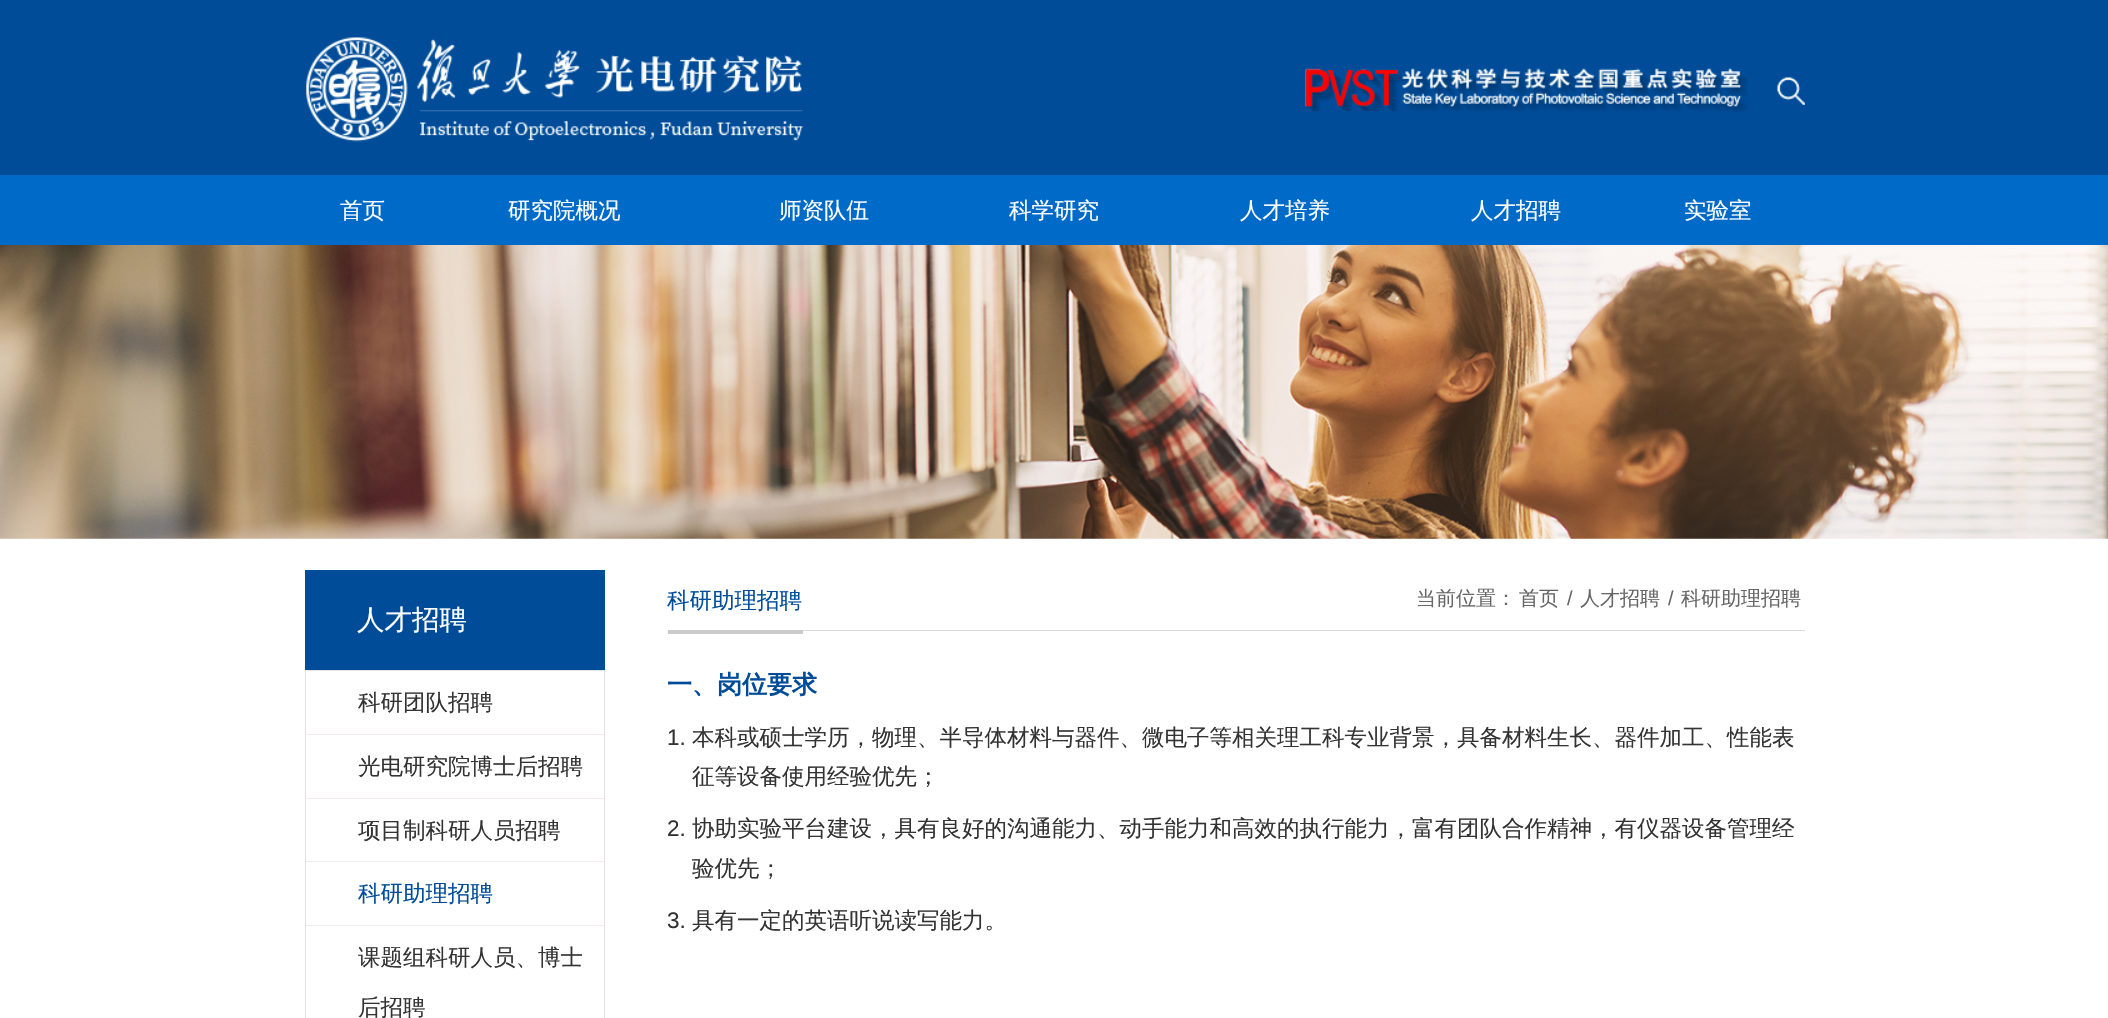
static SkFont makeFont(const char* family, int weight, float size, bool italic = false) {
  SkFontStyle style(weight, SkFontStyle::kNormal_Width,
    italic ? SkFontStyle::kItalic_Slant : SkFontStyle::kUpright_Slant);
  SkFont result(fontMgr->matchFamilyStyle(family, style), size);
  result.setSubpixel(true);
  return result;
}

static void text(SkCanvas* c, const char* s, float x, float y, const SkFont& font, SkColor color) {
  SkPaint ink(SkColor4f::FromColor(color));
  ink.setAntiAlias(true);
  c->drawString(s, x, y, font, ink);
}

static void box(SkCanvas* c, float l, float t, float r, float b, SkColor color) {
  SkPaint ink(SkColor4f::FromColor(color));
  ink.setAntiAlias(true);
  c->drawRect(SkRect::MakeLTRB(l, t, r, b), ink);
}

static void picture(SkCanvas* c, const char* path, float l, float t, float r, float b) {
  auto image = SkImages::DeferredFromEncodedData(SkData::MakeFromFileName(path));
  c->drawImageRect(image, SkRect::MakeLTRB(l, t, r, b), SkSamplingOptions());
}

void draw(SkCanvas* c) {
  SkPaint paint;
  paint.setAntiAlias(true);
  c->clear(0xffffffff);
  box(c, 0, 0, 2108, 175, 0xff004c99);
  picture(c, "img_01.png", 306, 37, 804, 142);
  picture(c, "img_02.png", 1304, 68, 1748, 112);
  picture(c, "img_03.png", 1777, 77, 1805, 105);
  box(c, 0, 175, 2108, 245, 0xff006ac8);
  SkFont face1 = makeFont("WenQuanYi Zen Hei", 500, 22.5f);
  text(c, "首页", 340, 218, face1, 0xffffffff);
  text(c, "研究院概况", 508, 218, face1, 0xffffffff);
  text(c, "师资队伍", 779, 218, face1, 0xffffffff);
  text(c, "科学研究", 1009, 218, face1, 0xffffffff);
  text(c, "人才培养", 1240, 218, face1, 0xffffffff);
  text(c, "人才招聘", 1471, 218, face1, 0xffffffff);
  text(c, "实验室", 1684, 218, face1, 0xffffffff);
  picture(c, "img_04.png", 0, 245, 2108, 539);
  box(c, 305, 570, 605, 670, 0xff004c99);
  SkFont face2 = makeFont("WenQuanYi Zen Hei", 500, 27.5f);
  text(c, "人才招聘", 357, 629, face2, 0xffffffff);
  paint.setStyle(SkPaint::kStroke_Style);
  paint.setStrokeWidth(1);
  paint.setColor(0xffe4e4e4);
  c->drawRect(SkRect::MakeLTRB(305.5f, 670.5f, 604.5f, 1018.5f), paint);
  box(c, 306, 734, 604, 735, 0xfff6eaea);
  text(c, "科研团队招聘", 358, 710, face1, 0xff333333);
  box(c, 306, 798, 604, 799, 0xfff6eaea);
  text(c, "光电研究院博士后招聘", 358, 774, face1, 0xff333333);
  box(c, 306, 861, 604, 862, 0xfff6eaea);
  text(c, "项目制科研人员招聘", 358, 838, face1, 0xff333333);
  box(c, 306, 925, 604, 926, 0xfff6eaea);
  text(c, "科研助理招聘", 358, 901, face1, 0xff004c99);
  text(c, "课题组科研人员、博士", 358, 965, face1, 0xff333333);
  text(c, "后招聘", 358, 1015, face1, 0xff333333);
  box(c, 803, 630, 1805, 631, 0xffdbdbdb);
  box(c, 668, 630, 803, 634, 0xffcbcbcb);
  text(c, "科研助理招聘", 667, 608, face1, 0xff004c99);
  SkFont face3 = makeFont("WenQuanYi Zen Hei", 500, 20);
  text(c, "当前位置：", 1416, 605, face3, 0xff666666);
  text(c, "首页", 1519, 605, face3, 0xff666666);
  SkFont face4 = makeFont("Liberation Sans", 400, 20);
  text(c, "/", 1567, 605, face4, 0xff666666);
  text(c, "人才招聘", 1580, 605, face3, 0xff666666);
  text(c, "/", 1668, 605, face4, 0xff666666);
  text(c, "科研助理招聘", 1681, 605, face3, 0xff666666);
  SkFont face5 = makeFont("WenQuanYi Zen Hei", 700, 25);
  text(c, "一、岗位要求", 667, 693, face5, 0xff004c99);
  SkFont face6 = makeFont("Liberation Sans", 400, 22.5f);
  text(c, "1.", 667, 745, face6, 0xff333333);
  text(c, "本科或硕士学历，物理、半导体材料与器件、微电子等相关理工科专业背景，具备材料生长、器件加工、性能表", 692, 745, face1, 0xff333333);
  text(c, "征等设备使用经验优先；", 692, 784, face1, 0xff333333);
  text(c, "2.", 667, 836, face6, 0xff333333);
  text(c, "协助实验平台建设，具有良好的沟通能力、动手能力和高效的执行能力，富有团队合作精神，有仪器设备管理经", 692, 836, face1, 0xff333333);
  text(c, "验优先；", 692, 876, face1, 0xff333333);
  text(c, "3.", 667, 928, face6, 0xff333333);
  text(c, "具有一定的英语听说读写能力。", 692, 928, face1, 0xff333333);
}
